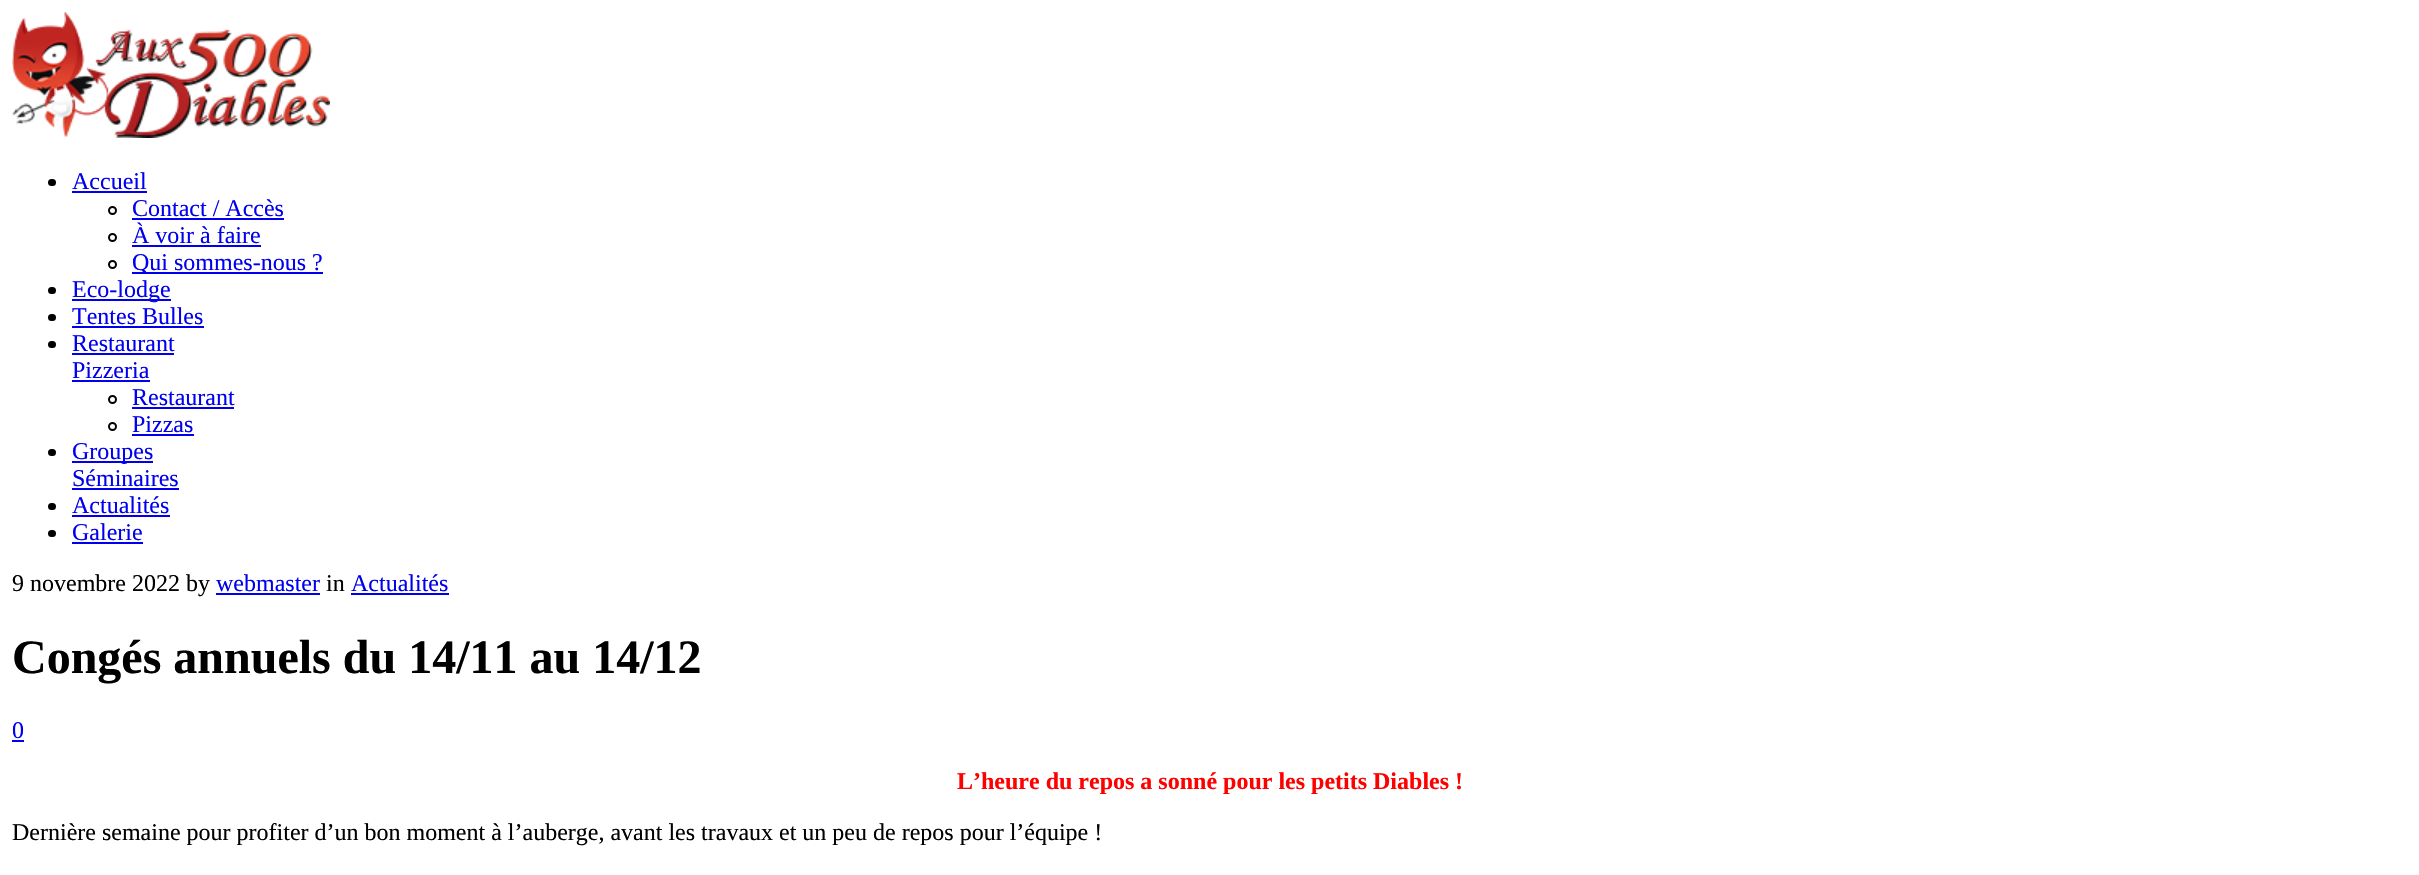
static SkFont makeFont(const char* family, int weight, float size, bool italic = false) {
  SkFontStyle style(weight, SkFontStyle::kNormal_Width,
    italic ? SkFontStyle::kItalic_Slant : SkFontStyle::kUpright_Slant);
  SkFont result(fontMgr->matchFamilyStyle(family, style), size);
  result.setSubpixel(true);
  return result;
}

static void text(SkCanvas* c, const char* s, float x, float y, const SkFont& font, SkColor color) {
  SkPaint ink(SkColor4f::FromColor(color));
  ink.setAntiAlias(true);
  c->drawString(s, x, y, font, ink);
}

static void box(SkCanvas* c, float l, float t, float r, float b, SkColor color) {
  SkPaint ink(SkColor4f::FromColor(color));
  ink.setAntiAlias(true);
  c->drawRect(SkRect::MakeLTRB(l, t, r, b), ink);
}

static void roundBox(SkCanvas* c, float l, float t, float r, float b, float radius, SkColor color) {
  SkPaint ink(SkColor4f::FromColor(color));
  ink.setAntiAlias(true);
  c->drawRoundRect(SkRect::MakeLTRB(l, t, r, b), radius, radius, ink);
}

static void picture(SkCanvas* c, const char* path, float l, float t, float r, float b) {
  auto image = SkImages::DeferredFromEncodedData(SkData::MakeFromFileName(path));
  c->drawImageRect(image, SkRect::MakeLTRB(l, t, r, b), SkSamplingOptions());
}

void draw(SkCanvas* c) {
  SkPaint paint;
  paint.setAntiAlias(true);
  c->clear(0xffffffff);
  picture(c, "img_01.png", 12, 12, 330, 138);
  roundBox(c, 48, 179, 56, 186, 3.5f, 0xff000000);
  SkFont face1 = makeFont("Liberation Serif", 400, 24);
  text(c, "Accueil", 72, 189, face1, 0xff0000ee);
  box(c, 72, 191, 147, 193, 0xff0000ee);
  paint.setStyle(SkPaint::kStroke_Style);
  paint.setStrokeWidth(2);
  paint.setColor(0xff000000);
  c->drawCircle(112.5f, 210.5f, 3.5f, paint);
  text(c, "Contact / Accès", 132, 216, face1, 0xff0000ee);
  box(c, 132, 218, 284, 220, 0xff0000ee);
  c->drawCircle(112.5f, 237.5f, 3.5f, paint);
  text(c, "À voir à faire", 132, 243, face1, 0xff0000ee);
  box(c, 132, 245, 261, 247, 0xff0000ee);
  c->drawCircle(112.5f, 264.5f, 3.5f, paint);
  box(c, 132, 272, 323, 274, 0xff0000ee);
  text(c, "Qui sommes-nous ?", 132, 270, face1, 0xff0000ee);
  roundBox(c, 48, 287, 56, 294, 3.5f, 0xff000000);
  box(c, 72, 299, 171, 301, 0xff0000ee);
  text(c, "Eco-lodge", 72, 297, face1, 0xff0000ee);
  roundBox(c, 48, 314, 56, 321, 3.5f, 0xff000000);
  text(c, "Tentes Bulles", 72, 324, face1, 0xff0000ee);
  box(c, 72, 326, 204, 328, 0xff0000ee);
  roundBox(c, 48, 341, 56, 348, 3.5f, 0xff000000);
  text(c, "Restaurant", 72, 351, face1, 0xff0000ee);
  box(c, 72, 353, 174, 355, 0xff0000ee);
  text(c, "Pizzeria", 72, 378, face1, 0xff0000ee);
  box(c, 72, 380, 150, 382, 0xff0000ee);
  c->drawCircle(112.5f, 399.5f, 3.5f, paint);
  text(c, "Restaurant", 132, 405, face1, 0xff0000ee);
  box(c, 132, 407, 234, 409, 0xff0000ee);
  c->drawCircle(112.5f, 426.5f, 3.5f, paint);
  text(c, "Pizzas", 132, 432, face1, 0xff0000ee);
  box(c, 132, 434, 194, 436, 0xff0000ee);
  roundBox(c, 48, 449, 56, 456, 3.5f, 0xff000000);
  box(c, 72, 461, 153, 463, 0xff0000ee);
  text(c, "Groupes", 72, 459, face1, 0xff0000ee);
  text(c, "Séminaires", 72, 486, face1, 0xff0000ee);
  box(c, 72, 488, 179, 490, 0xff0000ee);
  roundBox(c, 48, 503, 56, 510, 3.5f, 0xff000000);
  text(c, "Actualités", 72, 513, face1, 0xff0000ee);
  box(c, 72, 515, 170, 517, 0xff0000ee);
  roundBox(c, 48, 530, 56, 537, 3.5f, 0xff000000);
  text(c, "Galerie", 72, 540, face1, 0xff0000ee);
  box(c, 72, 542, 143, 544, 0xff0000ee);
  text(c, "9 novembre 2022 by", 12, 591, face1, 0xff000000);
  text(c, "webmaster", 216, 591, face1, 0xff0000ee);
  box(c, 216, 593, 320, 595, 0xff0000ee);
  text(c, "in", 326, 591, face1, 0xff000000);
  text(c, "Actualités", 351, 591, face1, 0xff0000ee);
  box(c, 351, 593, 449, 595, 0xff0000ee);
  SkFont face2 = makeFont("Liberation Serif", 700, 48);
  text(c, "Congés annuels du 14/11 au 14/12", 12, 673, face2, 0xff000000);
  text(c, "0", 12, 738, face1, 0xff0000ee);
  box(c, 12, 740, 24, 742, 0xff0000ee);
  SkFont face3 = makeFont("Liberation Serif", 700, 24);
  text(c, "L’heure du repos a sonné pour les petits Diables !", 957, 789, face3, 0xffff0000);
  text(c, "Dernière semaine pour profiter d’un bon moment à l’auberge, avant les travaux et un peu de repos pour l’équipe !", 12, 840, face1, 0xff000000);
}
